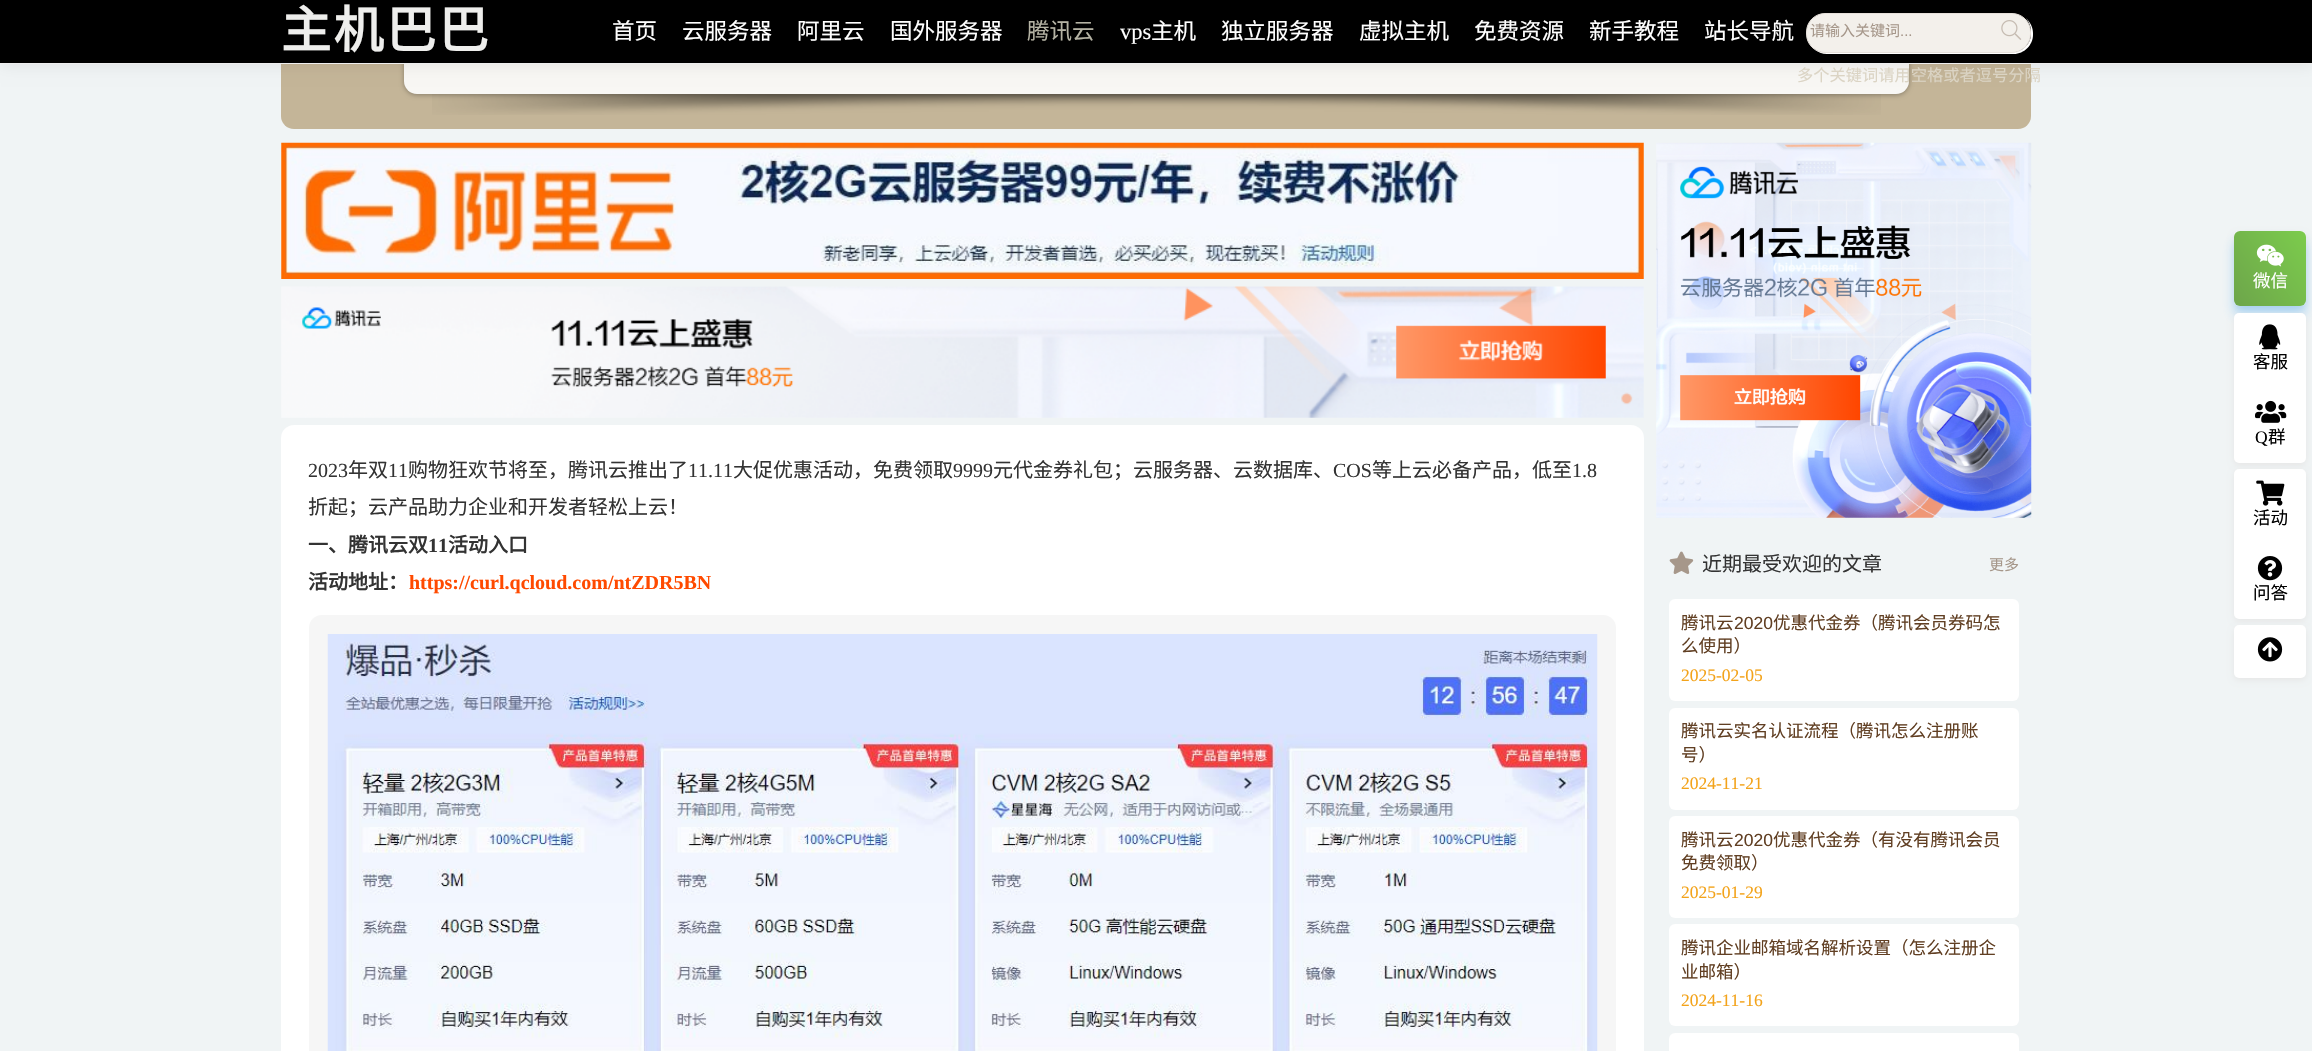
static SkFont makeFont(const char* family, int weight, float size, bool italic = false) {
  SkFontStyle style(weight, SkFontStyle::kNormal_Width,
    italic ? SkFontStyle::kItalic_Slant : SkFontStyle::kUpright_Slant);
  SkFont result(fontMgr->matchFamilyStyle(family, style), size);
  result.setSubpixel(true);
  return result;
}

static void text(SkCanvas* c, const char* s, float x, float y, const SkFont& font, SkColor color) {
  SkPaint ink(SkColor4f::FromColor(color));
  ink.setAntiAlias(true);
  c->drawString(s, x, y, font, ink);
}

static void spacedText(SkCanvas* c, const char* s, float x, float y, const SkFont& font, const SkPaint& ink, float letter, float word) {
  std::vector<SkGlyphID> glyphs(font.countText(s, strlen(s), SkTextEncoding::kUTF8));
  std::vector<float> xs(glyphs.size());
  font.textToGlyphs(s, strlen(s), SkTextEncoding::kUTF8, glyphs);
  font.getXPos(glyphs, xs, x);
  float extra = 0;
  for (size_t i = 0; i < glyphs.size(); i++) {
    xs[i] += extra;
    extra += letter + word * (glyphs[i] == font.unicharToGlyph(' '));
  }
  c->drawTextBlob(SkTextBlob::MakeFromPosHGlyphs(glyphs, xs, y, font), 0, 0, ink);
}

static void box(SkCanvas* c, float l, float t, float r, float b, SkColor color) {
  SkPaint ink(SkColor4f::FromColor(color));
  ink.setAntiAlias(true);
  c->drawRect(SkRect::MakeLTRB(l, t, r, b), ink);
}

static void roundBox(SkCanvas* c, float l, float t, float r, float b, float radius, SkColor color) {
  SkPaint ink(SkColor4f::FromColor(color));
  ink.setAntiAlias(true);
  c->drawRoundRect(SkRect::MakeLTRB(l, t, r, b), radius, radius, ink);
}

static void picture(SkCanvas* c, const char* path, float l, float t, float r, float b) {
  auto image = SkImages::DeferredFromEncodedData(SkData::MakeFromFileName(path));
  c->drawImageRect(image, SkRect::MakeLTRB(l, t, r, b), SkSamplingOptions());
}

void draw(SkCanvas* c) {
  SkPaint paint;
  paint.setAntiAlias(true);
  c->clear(0xfff0f4f5);
  roundBox(c, 281, -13, 2031, 129, 13, 0xffc4b598);
  paint.setColor(0x4d000000);
  paint.setMaskFilter(SkMaskFilter::MakeBlur(kNormal_SkBlurStyle, 2.5f));
  c->drawRoundRect(SkRect::MakeLTRB(404, -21, 1909, 95), 13, 13, paint);
  paint.setMaskFilter(nullptr);
  roundBox(c, 404, -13, 1909, 94, 13, 0xfff8f7f4);
  paint.setColor(0x14000000);
  paint.setMaskFilter(SkMaskFilter::MakeBlur(kNormal_SkBlurStyle, 7.5f));
  c->drawRect(SkRect::MakeLTRB(1, 1, 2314, 65), paint);
  paint.setMaskFilter(nullptr);
  box(c, 0, 0, 2312, 63, 0xff000000);
  box(c, 0, 63, 2312, 64, 0xffeeeeee);
  SkFont face1 = makeFont("Noto Sans CJK SC", 700, 50);
  paint.setColor(0xffeeeeec);
  spacedText(c, "主机巴巴", 281, 48, face1, paint, 2.5f, 0);
  SkFont face2 = makeFont("Noto Sans CJK SC", 400, 22.5f);
  text(c, "首页", 612, 39, face2, 0xffffffff);
  text(c, "云服务器", 682, 39, face2, 0xffffffff);
  text(c, "阿里云", 797, 39, face2, 0xffffffff);
  text(c, "国外服务器", 890, 39, face2, 0xffffffff);
  text(c, "腾讯云", 1027, 39, face2, 0xffb5b3a4);
  SkFont face3 = makeFont("Liberation Serif", 400, 22.5f);
  text(c, "vps", 1120, 39, face3, 0xffffffff);
  text(c, "主机", 1151, 39, face2, 0xffffffff);
  text(c, "独立服务器", 1221, 39, face2, 0xffffffff);
  text(c, "虚拟主机", 1359, 39, face2, 0xffffffff);
  text(c, "免费资源", 1474, 39, face2, 0xffffffff);
  text(c, "新手教程", 1589, 39, face2, 0xffffffff);
  text(c, "站长导航", 1704, 39, face2, 0xffffffff);
  paint.setColor(0xffffffff);
  c->drawPath(SkPathBuilder().moveTo(1814, 49).cubicTo(1818, 52, 1822, 54, 1827, 54).lineTo(2014, 54).cubicTo(2024, 54, 2033, 45, 2033, 35).lineTo(2033, 33).cubicTo(2033, 27, 2030, 22, 2026, 18).cubicTo(2029, 22, 2031, 26, 2031, 31).lineTo(2031, 34).cubicTo(2031, 44, 2023, 52, 2012, 52).lineTo(1825, 52).cubicTo(1821, 52, 1817, 51, 1814, 49).close().detach(), paint);
  paint.setColor(0xfff3f0eb);
  c->drawRoundRect(SkRect::MakeLTRB(1806.5f, 13.5f, 2030.5f, 52.5f), 18.5f, 18.5f, paint);
  paint.setStyle(SkPaint::kStroke_Style);
  paint.setStrokeWidth(1);
  paint.setColor(0xffe6e0da);
  c->drawRoundRect(SkRect::MakeLTRB(1806.5f, 13.5f, 2030.5f, 52.5f), 18.5f, 18.5f, paint);
  SkFont face4 = makeFont("Noto Sans CJK SC", 400, 15);
  text(c, "请输入关键词", 1810, 36, face4, 0xffa6978a);
  SkFont face5 = makeFont("Liberation Sans", 400, 15);
  text(c, "...", 1900, 36, face5, 0xffa6978a);
  picture(c, "img_01.png", 2001, 20, 2022, 40);
  SkFont face6 = makeFont("Noto Sans CJK SC", 400, 16.25f);
  text(c, "多个关键词请用空格或者逗号分隔", 1797, 81, face6, 0xffdbd4c4);
  picture(c, "img_02.png", 432, 94, 1881, 115);
  picture(c, "img_03.png", 281, 142, 1644, 279);
  picture(c, "img_04.png", 281, 286, 1644, 418);
  roundBox(c, 281, 425, 1644, 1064, 13, 0xffffffff);
  SkFont face7 = makeFont("Liberation Serif", 400, 20);
  text(c, "2023", 308, 477, face7, 0xff333333);
  SkFont face8 = makeFont("Noto Sans CJK SC", 400, 20);
  text(c, "年双", 348, 477, face8, 0xff333333);
  text(c, "11", 388, 477, face7, 0xff333333);
  text(c, "购物狂欢节将至，腾讯云推出了", 408, 477, face8, 0xff333333);
  text(c, "11.11", 688, 477, face7, 0xff333333);
  text(c, "大促优惠活动，免费领取", 733, 477, face8, 0xff333333);
  text(c, "9999", 953, 477, face7, 0xff333333);
  text(c, "元代金券礼包；云服务器、云数据库、", 993, 477, face8, 0xff333333);
  text(c, "COS", 1333, 477, face7, 0xff333333);
  text(c, "等上云必备产品，低至", 1372, 477, face8, 0xff333333);
  text(c, "1.8", 1572, 477, face7, 0xff333333);
  text(c, "折起；云产品助力企业和开发者轻松上云！", 308, 514, face8, 0xff333333);
  SkFont face9 = makeFont("Noto Sans CJK SC", 700, 20);
  text(c, "一、腾讯云双", 308, 552, face9, 0xff333333);
  SkFont face10 = makeFont("Liberation Serif", 700, 20);
  text(c, "11", 428, 552, face10, 0xff333333);
  text(c, "活动入口", 448, 552, face9, 0xff333333);
  text(c, "活动地址：", 308, 589, face9, 0xff333333);
  text(c, "https://curl.qcloud.com/ntZDR5BN", 409, 589, face10, 0xffff4a00);
  roundBox(c, 309, 615, 1616, 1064, 13, 0xfff6f6f6);
  picture(c, "img_05.png", 327, 634, 1598, 1051);
  picture(c, "img_06.png", 1656, 142, 2032, 518);
  picture(c, "img_07.png", 1669, 551, 1694, 574);
  text(c, "近期最受欢迎的文章", 1702, 571, face8, 0xff333333);
  text(c, "更多", 1989, 570, face4, 0xffa6978a);
  roundBox(c, 1669, 599, 2019, 701, 6, 0xffffffff);
  SkFont face11 = makeFont("Noto Sans CJK SC", 400, 17.5f);
  text(c, "腾讯云", 1681, 629, face11, 0xff613f23);
  SkFont face12 = makeFont("Liberation Sans", 400, 17.5f);
  text(c, "2020", 1734, 629, face12, 0xff613f23);
  text(c, "优惠代金券（腾讯会员券码怎", 1773, 629, face11, 0xff613f23);
  text(c, "么使用）", 1681, 652, face11, 0xff613f23);
  SkFont face13 = makeFont("Liberation Serif", 400, 17.5f);
  text(c, "2025-02-05", 1681, 681, face13, 0xfff3a31a);
  roundBox(c, 1669, 708, 2019, 810, 6, 0xffffffff);
  text(c, "腾讯云实名认证流程（腾讯怎么注册账", 1681, 737, face11, 0xff613f23);
  text(c, "号）", 1681, 761, face11, 0xff613f23);
  text(c, "2024-11-21", 1681, 789, face13, 0xfff3a31a);
  roundBox(c, 1669, 816, 2019, 918, 6, 0xffffffff);
  text(c, "腾讯云", 1681, 846, face11, 0xff613f23);
  text(c, "2020", 1734, 846, face12, 0xff613f23);
  text(c, "优惠代金券（有没有腾讯会员", 1773, 846, face11, 0xff613f23);
  text(c, "免费领取）", 1681, 869, face11, 0xff613f23);
  text(c, "2025-01-29", 1681, 898, face13, 0xfff3a31a);
  roundBox(c, 1669, 924, 2019, 1026, 6, 0xffffffff);
  text(c, "腾讯企业邮箱域名解析设置（怎么注册企", 1681, 954, face11, 0xff613f23);
  text(c, "业邮箱）", 1681, 978, face11, 0xff613f23);
  text(c, "2024-11-16", 1681, 1006, face13, 0xfff3a31a);
  roundBox(c, 1669, 1033, 2019, 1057, 6, 0xffffffff);
  paint.setStyle(SkPaint::kFill_Style);
  paint.setColor(0xffe6e6e6);
  paint.setMaskFilter(SkMaskFilter::MakeBlur(kNormal_SkBlurStyle, 3));
  c->drawRoundRect(SkRect::MakeLTRB(2234, 234, 2306, 309), 5, 5, paint);
  paint.setMaskFilter(nullptr);
  roundBox(c, 2234, 231, 2306, 306, 5, 0xffffffff);
  paint.setColor(0x4d20a0ff);
  paint.setMaskFilter(SkMaskFilter::MakeBlur(kNormal_SkBlurStyle, 6));
  c->drawRoundRect(SkRect::MakeLTRB(2234, 241, 2306, 316), 6, 6, paint);
  paint.setMaskFilter(nullptr);
  {
    const SkColor colors[] = {0xff7ccc4c, 0xff6da54b};
    const float stops[] = {0, 1};
    const SkPoint ends[] = {{2312, 239}, {2228, 298}};
    paint.setShader(SkGradientShader::MakeLinear(ends, colors, stops, 2, SkTileMode::kClamp));
    paint.setAlpha(255);
  }
  c->drawRoundRect(SkRect::MakeLTRB(2234, 231, 2306, 306), 6, 6, paint);
  picture(c, "img_08.png", 2256, 244, 2284, 267);
  text(c, "微信", 2253, 287, face11, 0xffffffff);
  paint.setShader(nullptr);
  paint.setColor(0xffe6e6e6);
  paint.setMaskFilter(SkMaskFilter::MakeBlur(kNormal_SkBlurStyle, 3));
  c->drawRoundRect(SkRect::MakeLTRB(2234, 315, 2306, 465), 5, 5, paint);
  paint.setMaskFilter(nullptr);
  roundBox(c, 2234, 313, 2306, 463, 5, 0xffffffff);
  picture(c, "img_09.png", 2259, 324, 2281, 350);
  text(c, "客服", 2253, 368, face11, 0xff000000);
  picture(c, "img_10.png", 2255, 400, 2287, 423);
  text(c, "Q", 2255, 443, face13, 0xff000000);
  text(c, "群", 2268, 443, face11, 0xff000000);
  paint.setMaskFilter(SkMaskFilter::MakeBlur(kNormal_SkBlurStyle, 3));
  c->drawRoundRect(SkRect::MakeLTRB(2234, 471, 2306, 621), 5, 5, paint);
  paint.setMaskFilter(nullptr);
  roundBox(c, 2234, 469, 2306, 619, 5, 0xffffffff);
  picture(c, "img_11.png", 2256, 480, 2285, 506);
  text(c, "活动", 2253, 524, face11, 0xff000000);
  picture(c, "img_12.png", 2257, 556, 2283, 581);
  text(c, "问答", 2253, 599, face11, 0xff000000);
  paint.setMaskFilter(SkMaskFilter::MakeBlur(kNormal_SkBlurStyle, 3));
  c->drawRoundRect(SkRect::MakeLTRB(2234, 628, 2306, 680), 5, 5, paint);
  paint.setMaskFilter(nullptr);
  roundBox(c, 2234, 625, 2306, 678, 5, 0xffffffff);
  picture(c, "img_13.png", 2257, 637, 2283, 662);
}
